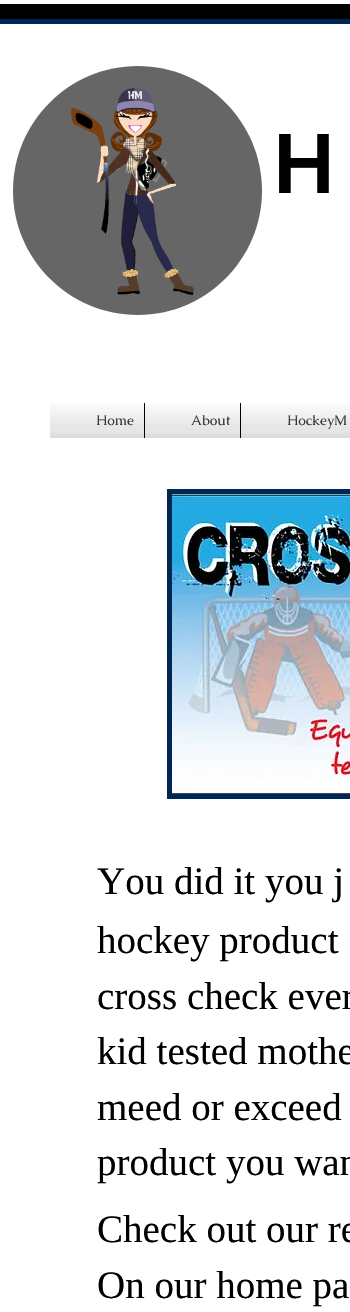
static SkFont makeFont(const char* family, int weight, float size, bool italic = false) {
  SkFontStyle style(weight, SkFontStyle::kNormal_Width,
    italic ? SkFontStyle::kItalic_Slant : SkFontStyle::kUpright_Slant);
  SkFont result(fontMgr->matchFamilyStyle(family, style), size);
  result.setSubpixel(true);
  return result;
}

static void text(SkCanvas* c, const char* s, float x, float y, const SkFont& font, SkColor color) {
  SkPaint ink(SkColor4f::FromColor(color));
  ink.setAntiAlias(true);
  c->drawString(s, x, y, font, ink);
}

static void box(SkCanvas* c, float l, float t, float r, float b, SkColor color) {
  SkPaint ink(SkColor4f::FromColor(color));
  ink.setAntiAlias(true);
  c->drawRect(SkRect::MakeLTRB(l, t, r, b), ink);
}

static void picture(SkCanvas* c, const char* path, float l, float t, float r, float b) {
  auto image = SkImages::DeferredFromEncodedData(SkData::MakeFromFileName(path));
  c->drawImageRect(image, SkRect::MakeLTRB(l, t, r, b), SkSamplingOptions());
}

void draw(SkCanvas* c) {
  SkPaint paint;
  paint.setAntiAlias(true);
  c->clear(0xffffffff);
  box(c, 0, 4, 350, 19, 0xff000000);
  box(c, 0, 19, 350, 24, 0xff002754);
  paint.setColor(0xff666666);
  c->drawPath(SkPathBuilder().moveTo(262, 191).cubicTo(262, 259, 206, 315, 138, 315).cubicTo(69, 315, 13, 259, 13, 191).cubicTo(13, 122, 69, 66, 138, 66).cubicTo(206, 66, 262, 122, 262, 191).close().detach(), paint);
  picture(c, "img_01.png", 71, 88, 194, 295);
  SkFont face1 = makeFont("Raleway", 700, 83);
  text(c, "H", 273, 193, face1, 0xff000000);
  SkFont face2 = makeFont("Caudex", 400, 14);
  text(c, "Home", 96, 425, face2, 0xff000000);
  picture(c, "img_02.png", 97, 415, 134, 426);
  picture(c, "img_03.png", 50, 404, 144, 438);
  box(c, 144, 403, 145, 438, 0xff000000);
  text(c, "About", 191, 425, face2, 0xff000000);
  picture(c, "img_04.png", 191, 415, 230, 426);
  picture(c, "img_05.png", 145, 404, 240, 438);
  box(c, 240, 403, 241, 438, 0xff000000);
  text(c, "HockeyM", 287, 425, face2, 0xff000000);
  picture(c, "img_06.png", 288, 415, 350, 429);
  picture(c, "img_07.png", 241, 404, 350, 438);
  box(c, 167, 489, 350, 799, 0xff002754);
  picture(c, "img_08.png", 172, 494, 350, 794);
  SkFont face3 = makeFont("Liberation Serif", 400, 39);
  text(c, "You did it you j", 97, 894, face3, 0xff000000);
  text(c, "hockey product", 97, 953, face3, 0xff000000);
  text(c, "cross check ever", 97, 1009, face3, 0xff000000);
  text(c, "kid tested mothe", 97, 1064, face3, 0xff000000);
  text(c, "meed or exceed", 97, 1120, face3, 0xff000000);
  text(c, "product you wan", 97, 1175, face3, 0xff000000);
  text(c, "Check out our re", 97, 1242, face3, 0xff000000);
  text(c, "On our home pa", 97, 1298, face3, 0xff000000);
}
